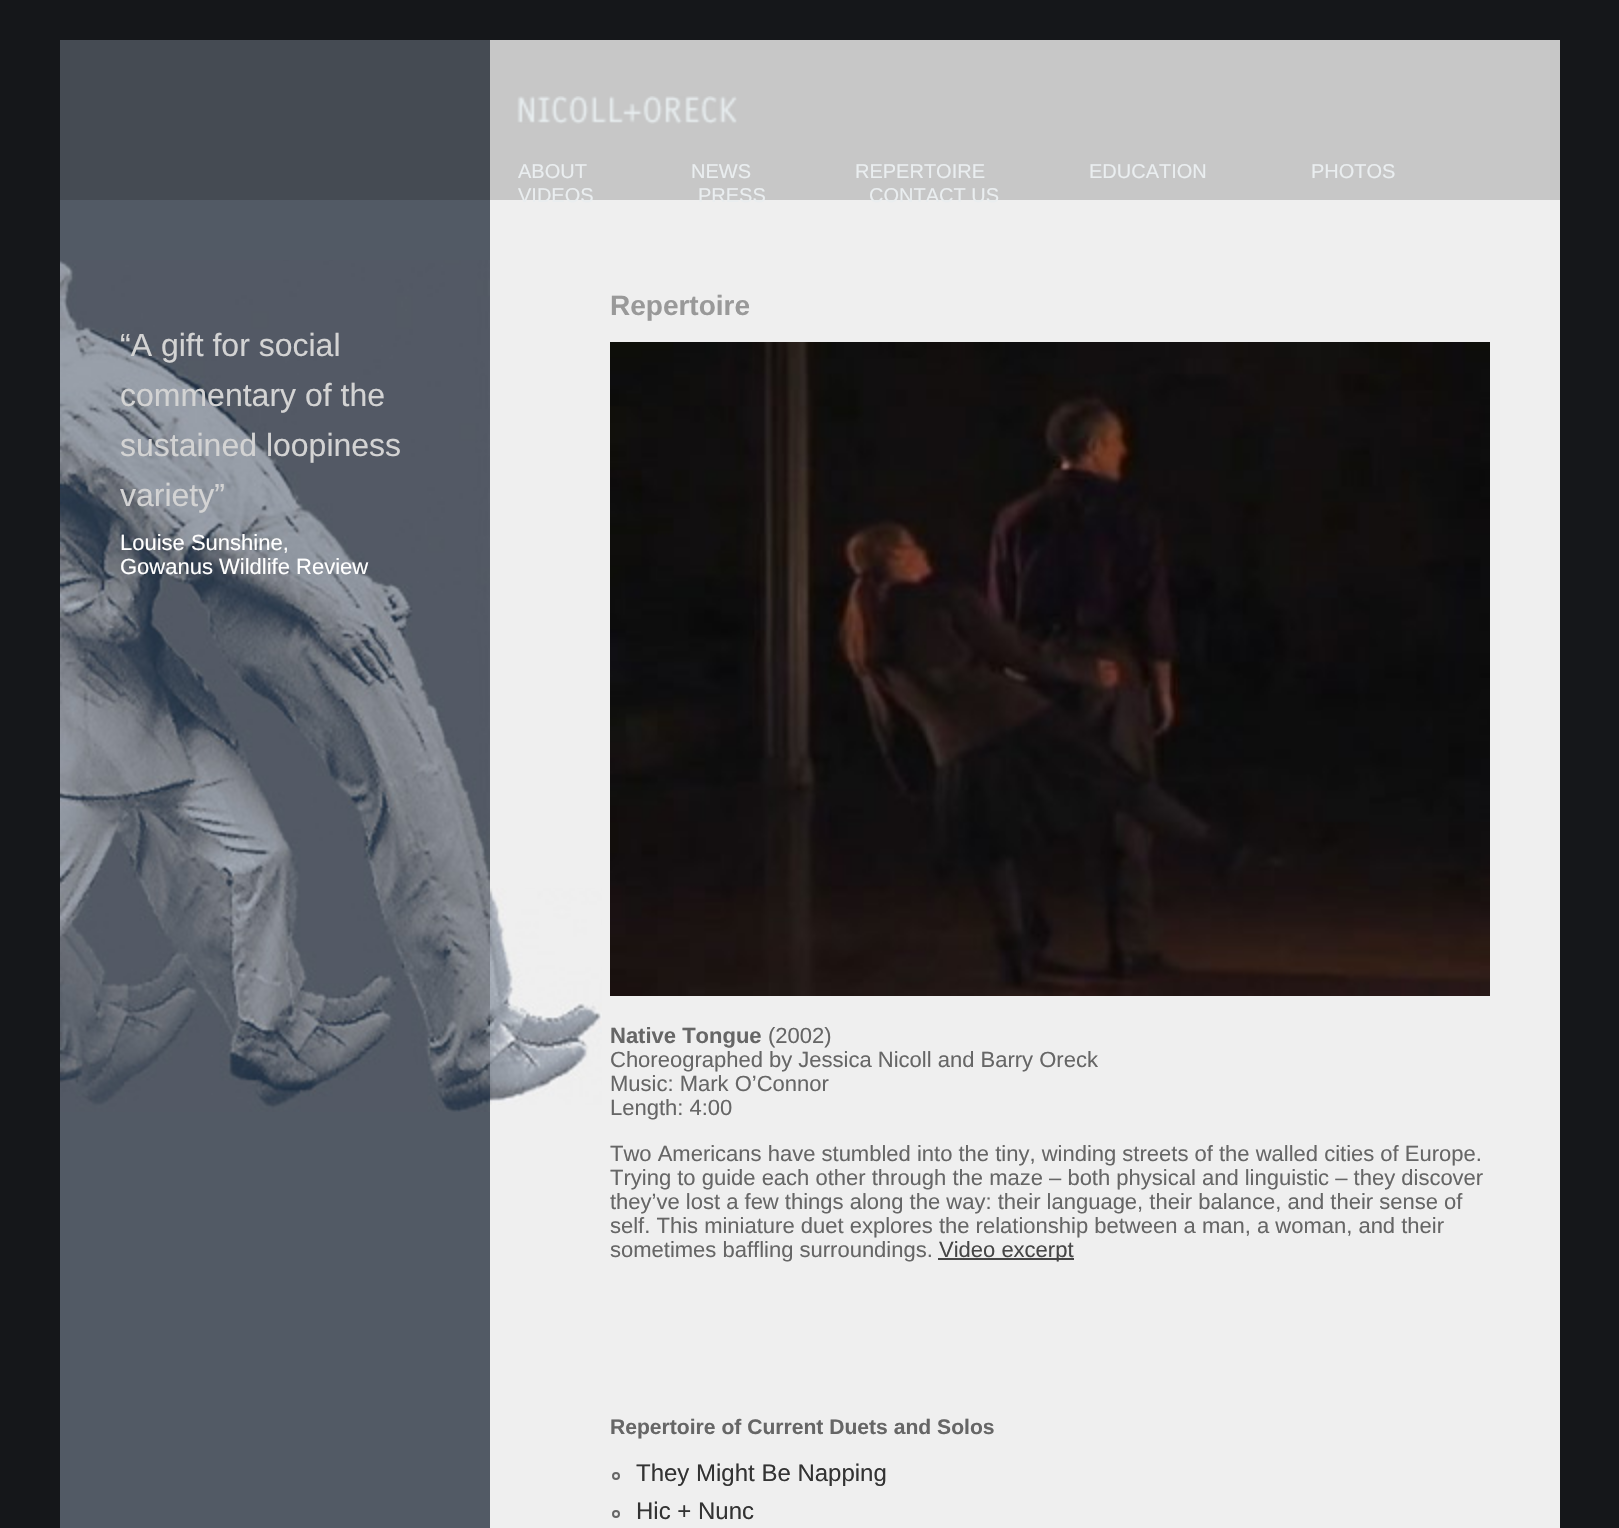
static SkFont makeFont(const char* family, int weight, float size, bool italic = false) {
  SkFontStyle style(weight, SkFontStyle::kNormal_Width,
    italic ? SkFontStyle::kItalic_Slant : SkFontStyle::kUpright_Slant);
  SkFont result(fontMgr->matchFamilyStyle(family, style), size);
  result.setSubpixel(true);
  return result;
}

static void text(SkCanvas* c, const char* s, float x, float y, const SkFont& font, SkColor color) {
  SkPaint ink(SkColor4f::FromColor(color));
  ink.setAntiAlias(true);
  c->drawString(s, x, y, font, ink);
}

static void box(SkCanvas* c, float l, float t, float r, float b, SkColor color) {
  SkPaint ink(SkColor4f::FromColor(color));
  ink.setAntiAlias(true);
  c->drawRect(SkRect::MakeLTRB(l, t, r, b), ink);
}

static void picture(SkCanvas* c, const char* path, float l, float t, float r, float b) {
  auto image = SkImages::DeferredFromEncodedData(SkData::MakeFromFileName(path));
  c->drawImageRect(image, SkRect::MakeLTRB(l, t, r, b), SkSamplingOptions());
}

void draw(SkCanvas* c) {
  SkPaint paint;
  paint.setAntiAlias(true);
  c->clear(0xff15171a);
  box(c, 60, 200, 490, 1528, 0xff525a65);
  box(c, 60, 40, 490, 200, 0xff454b53);
  box(c, 490, 40, 1560, 200, 0xffc7c7c7);
  picture(c, "img_01.png", 517, 96, 737, 124);
  SkFont face1 = makeFont("Liberation Sans", 400, 20);
  text(c, "ABOUT", 518, 178, face1, 0xffeaeef0);
  text(c, "NEWS", 691, 178, face1, 0xffeaeef0);
  text(c, "REPERTOIRE", 855, 178, face1, 0xffeaeef0);
  text(c, "EDUCATION", 1089, 178, face1, 0xffeaeef0);
  text(c, "PHOTOS", 1311, 178, face1, 0xffeaeef0);
  box(c, 490, 200, 1560, 1528, 0xffefefef);
  text(c, "VIDEOS", 518, 202, face1, 0xffeaeef0);
  text(c, "PRESS", 698, 202, face1, 0xffeaeef0);
  text(c, "CONTACT US", 869, 202, face1, 0xffeaeef0);
  picture(c, "img_02.png", 60, 260, 490, 1112);
  SkFont face2 = makeFont("Liberation Sans", 400, 32);
  text(c, "“A gift for social", 120, 356, face2, 0xffd3d3d3);
  text(c, "commentary of the", 120, 406, face2, 0xffd3d3d3);
  text(c, "sustained loopiness", 120, 456, face2, 0xffd3d3d3);
  text(c, "variety”", 120, 506, face2, 0xffd3d3d3);
  SkFont face3 = makeFont("Liberation Sans", 400, 22);
  text(c, "Louise Sunshine,", 120, 550, face3, 0xffffffff);
  text(c, "Gowanus Wildlife Review", 120, 574, face3, 0xffffffff);
  picture(c, "img_03.png", 490, 888, 602, 1105);
  SkFont face4 = makeFont("Liberation Sans", 700, 28);
  text(c, "Repertoire", 610, 315, face4, 0xff999999);
  picture(c, "img_04.png", 610, 342, 1490, 996);
  SkFont face5 = makeFont("Liberation Sans", 700, 22);
  text(c, "Native Tongue", 610, 1043, face5, 0xff666666);
  text(c, "(2002)", 768, 1043, face3, 0xff666666);
  text(c, "Choreographed by Jessica Nicoll and Barry Oreck", 610, 1067, face3, 0xff666666);
  text(c, "Music: Mark O’Connor", 610, 1091, face3, 0xff666666);
  text(c, "Length: 4:00", 610, 1115, face3, 0xff666666);
  text(c, "Two Americans have stumbled into the tiny, winding streets of the walled cities of Europe.", 610, 1161, face3, 0xff666666);
  text(c, "Trying to guide each other through the maze – both physical and linguistic – they discover", 610, 1185, face3, 0xff666666);
  text(c, "they’ve lost a few things along the way: their language, their balance, and their sense of", 610, 1209, face3, 0xff666666);
  text(c, "self. This miniature duet explores the relationship between a man, a woman, and their", 610, 1233, face3, 0xff666666);
  text(c, "sometimes baffling surroundings.", 610, 1257, face3, 0xff666666);
  box(c, 938, 1258, 1074, 1260, 0xff464646);
  text(c, "Video excerpt", 939, 1257, face3, 0xff464646);
  SkFont face6 = makeFont("Liberation Sans", 700, 21.1f);
  text(c, "Repertoire of Current Duets and Solos", 610, 1434, face6, 0xff666666);
  paint.setStyle(SkPaint::kStroke_Style);
  paint.setStrokeWidth(2);
  paint.setColor(0xff666666);
  c->drawCircle(616, 1476, 3, paint);
  SkFont face7 = makeFont("Liberation Sans", 400, 24);
  text(c, "They Might Be Napping", 636, 1481, face7, 0xff333333);
  c->drawCircle(616, 1514, 3, paint);
  text(c, "Hic + Nunc", 636, 1519, face7, 0xff333333);
}
